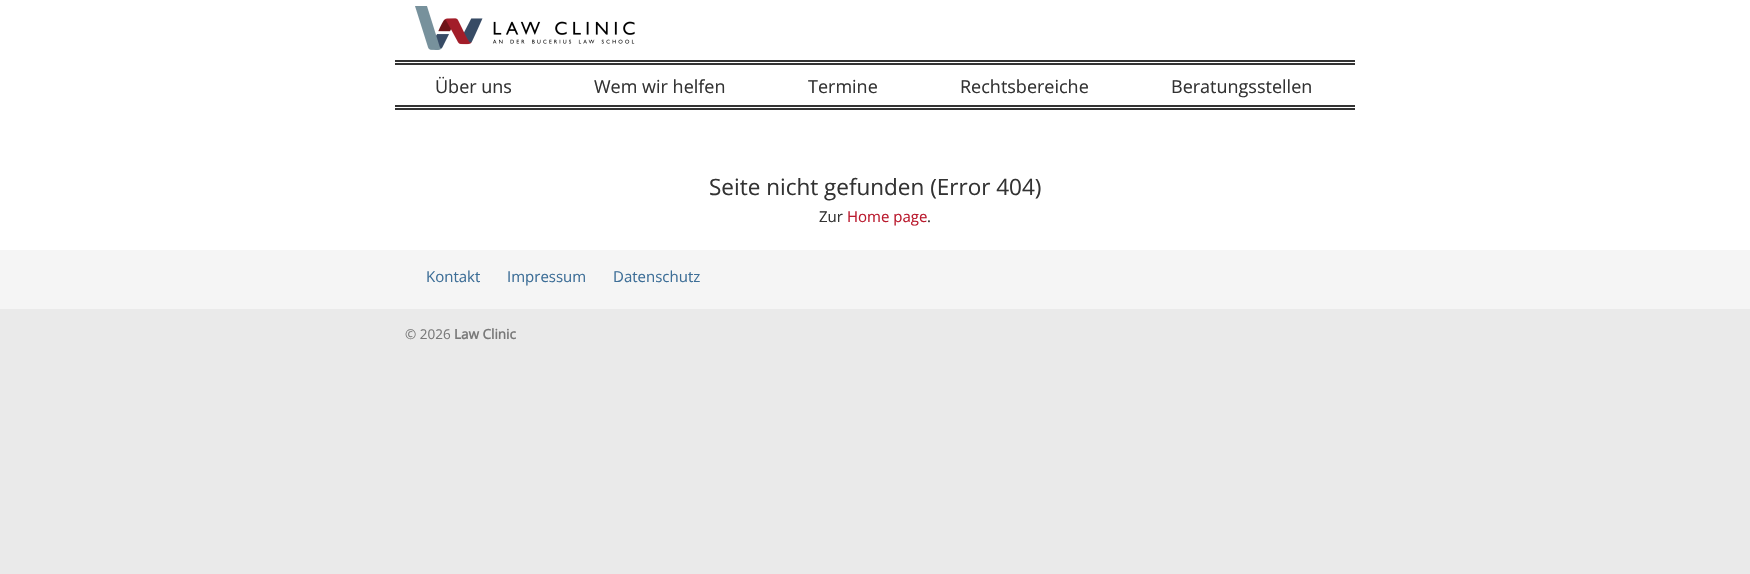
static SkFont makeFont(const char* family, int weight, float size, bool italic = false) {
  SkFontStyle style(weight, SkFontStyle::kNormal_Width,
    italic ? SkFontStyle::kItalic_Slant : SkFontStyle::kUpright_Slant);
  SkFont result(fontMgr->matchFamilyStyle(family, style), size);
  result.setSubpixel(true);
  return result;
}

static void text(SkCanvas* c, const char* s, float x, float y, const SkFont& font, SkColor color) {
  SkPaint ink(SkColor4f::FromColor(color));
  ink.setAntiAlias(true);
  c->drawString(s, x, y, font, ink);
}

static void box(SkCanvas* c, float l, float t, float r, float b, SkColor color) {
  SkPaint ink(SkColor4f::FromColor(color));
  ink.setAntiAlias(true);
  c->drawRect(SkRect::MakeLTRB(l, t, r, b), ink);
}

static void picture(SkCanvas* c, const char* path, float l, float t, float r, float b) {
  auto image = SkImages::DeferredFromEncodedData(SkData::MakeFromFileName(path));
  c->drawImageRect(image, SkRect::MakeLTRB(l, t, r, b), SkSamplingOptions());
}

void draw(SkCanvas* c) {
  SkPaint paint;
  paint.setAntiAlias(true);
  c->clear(0xffeaeaea);
  box(c, 0, 0, 1750, 250, 0xffffffff);
  picture(c, "img_01.png", 415, 6, 635, 50);
  box(c, 395, 60, 1355, 62, 0xff333333);
  box(c, 395, 63, 1355, 65, 0xff333333);
  box(c, 395, 105, 1355, 107, 0xff333333);
  box(c, 395, 108, 1355, 110, 0xff333333);
  SkFont face1 = makeFont("Open Sans", 400, 18);
  text(c, "Über uns", 435, 93, face1, 0xff333333);
  text(c, "Wem wir helfen", 594, 93, face1, 0xff333333);
  text(c, "Termine", 808, 93, face1, 0xff333333);
  text(c, "Rechtsbereiche", 960, 93, face1, 0xff333333);
  text(c, "Beratungsstellen", 1171, 93, face1, 0xff333333);
  SkFont face2 = makeFont("Open Sans", 400, 22.5f);
  text(c, "Seite nicht gefunden (Error 404)", 709, 195, face2, 0xff333333);
  SkFont face3 = makeFont("Open Sans", 400, 15);
  text(c, "Zur", 819, 222, face3, 0xff333333);
  text(c, "Home page", 847, 222, face3, 0xffba1a2e);
  text(c, ".", 927, 222, face3, 0xff333333);
  box(c, 0, 250, 1750, 309, 0xfff5f5f5);
  text(c, "Kontakt", 426, 282, face3, 0xff3d6e97);
  text(c, "Impressum", 507, 282, face3, 0xff3d6e97);
  text(c, "Datenschutz", 613, 282, face3, 0xff3d6e97);
  SkFont face4 = makeFont("Open Sans", 400, 13.5f);
  text(c, "© 2026", 405, 339, face4, 0xff797979);
  SkFont face5 = makeFont("Open Sans", 700, 13.5f);
  text(c, "Law Clinic", 454, 339, face5, 0xff797979);
}
